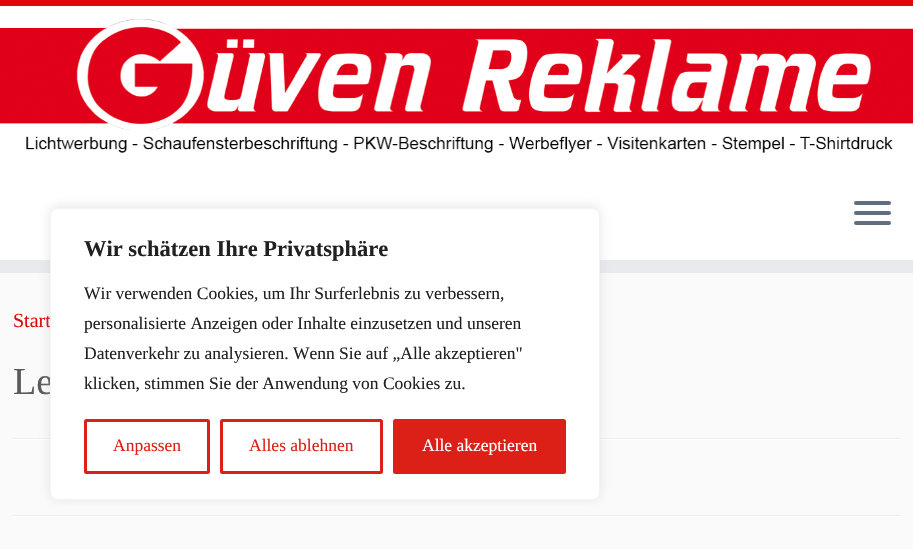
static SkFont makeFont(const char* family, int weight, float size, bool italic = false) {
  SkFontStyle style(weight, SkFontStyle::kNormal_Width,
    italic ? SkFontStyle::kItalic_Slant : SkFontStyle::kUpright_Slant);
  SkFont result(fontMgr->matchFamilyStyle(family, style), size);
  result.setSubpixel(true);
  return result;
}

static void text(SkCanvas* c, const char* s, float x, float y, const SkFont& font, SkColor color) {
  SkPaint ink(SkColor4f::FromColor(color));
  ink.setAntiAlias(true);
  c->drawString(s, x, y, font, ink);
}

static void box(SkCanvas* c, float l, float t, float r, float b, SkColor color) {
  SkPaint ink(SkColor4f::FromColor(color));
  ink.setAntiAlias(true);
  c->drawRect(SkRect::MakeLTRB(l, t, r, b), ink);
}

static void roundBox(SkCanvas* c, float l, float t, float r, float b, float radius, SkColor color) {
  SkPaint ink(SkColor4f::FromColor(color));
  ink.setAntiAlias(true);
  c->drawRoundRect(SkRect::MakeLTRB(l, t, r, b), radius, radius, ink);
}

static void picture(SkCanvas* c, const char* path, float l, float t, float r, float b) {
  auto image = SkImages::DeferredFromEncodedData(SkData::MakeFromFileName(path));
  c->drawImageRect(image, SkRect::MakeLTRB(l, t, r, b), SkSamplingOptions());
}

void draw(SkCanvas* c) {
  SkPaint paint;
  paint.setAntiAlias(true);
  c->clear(0xfffafafa);
  box(c, 0, 6, 913, 260, 0xffffffff);
  box(c, 0, 0, 913, 6, 0xffe10707);
  box(c, 0, 260, 913, 273, 0xffe9eaee);
  picture(c, "img_01.png", 0, 19, 913, 153);
  roundBox(c, 854, 201, 891, 205, 2, 0xff5f6f81);
  roundBox(c, 854, 211, 891, 215, 2, 0xff5f6f81);
  roundBox(c, 854, 221, 891, 225, 2, 0xff5f6f81);
  SkFont face1 = makeFont("Liberation Serif", 400, 20);
  text(c, "Start", 13, 327, face1, 0xffe10707);
  SkFont face2 = makeFont("Liberation Serif", 400, 38);
  text(c, "Le", 13, 394, face2, 0xff5a5a5a);
  box(c, 13, 438, 901, 439, 0xffeeeeee);
  box(c, 13, 439, 901, 440, 0xffffffff);
  box(c, 13, 515, 901, 516, 0xffeeeeee);
  box(c, 13, 516, 901, 517, 0xffffffff);
  paint.setColor(0x4dacabab);
  paint.setMaskFilter(SkMaskFilter::MakeBlur(kNormal_SkBlurStyle, 6));
  c->drawRoundRect(SkRect::MakeLTRB(50, 206, 600, 499), 8, 8, paint);
  paint.setMaskFilter(nullptr);
  paint.setColor(0xffffffff);
  c->drawRoundRect(SkRect::MakeLTRB(50.5f, 208.5f, 599.5f, 499.5f), 7.5f, 7.5f, paint);
  paint.setStyle(SkPaint::kStroke_Style);
  paint.setStrokeWidth(1);
  paint.setColor(0xfff4f4f4);
  c->drawRoundRect(SkRect::MakeLTRB(50.5f, 208.5f, 599.5f, 499.5f), 7.5f, 7.5f, paint);
  SkFont face3 = makeFont("Liberation Serif", 700, 22.5f);
  text(c, "Wir schätzen Ihre Privatsphäre", 84, 256, face3, 0xff212121);
  SkFont face4 = makeFont("Liberation Serif", 400, 17.5f);
  text(c, "Wir verwenden Cookies, um Ihr Surferlebnis zu verbessern,", 84, 299, face4, 0xff212121);
  text(c, "personalisierte Anzeigen oder Inhalte einzusetzen und unseren", 84, 329, face4, 0xff212121);
  text(c, "Datenverkehr zu analysieren. Wenn Sie auf „Alle akzeptieren\"", 84, 359, face4, 0xff212121);
  text(c, "klicken, stimmen Sie der Anwendung von Cookies zu.", 84, 389, face4, 0xff212121);
  paint.setStrokeWidth(3);
  paint.setColor(0xffdc2018);
  c->drawRoundRect(SkRect::MakeLTRB(85.5f, 420.5f, 208.5f, 472.5f), 1, 1, paint);
  text(c, "Anpassen", 113, 451, face4, 0xffdc2018);
  c->drawRoundRect(SkRect::MakeLTRB(221.5f, 420.5f, 381.5f, 472.5f), 1, 1, paint);
  text(c, "Alles ablehnen", 249, 451, face4, 0xffdc2018);
  paint.setStyle(SkPaint::kFill_Style);
  c->drawRoundRect(SkRect::MakeLTRB(394.5f, 420.5f, 564.5f, 472.5f), 1, 1, paint);
  paint.setStyle(SkPaint::kStroke_Style);
  c->drawRoundRect(SkRect::MakeLTRB(394.5f, 420.5f, 564.5f, 472.5f), 1, 1, paint);
  text(c, "Alle akzeptieren", 422, 451, face4, 0xffffffff);
}
